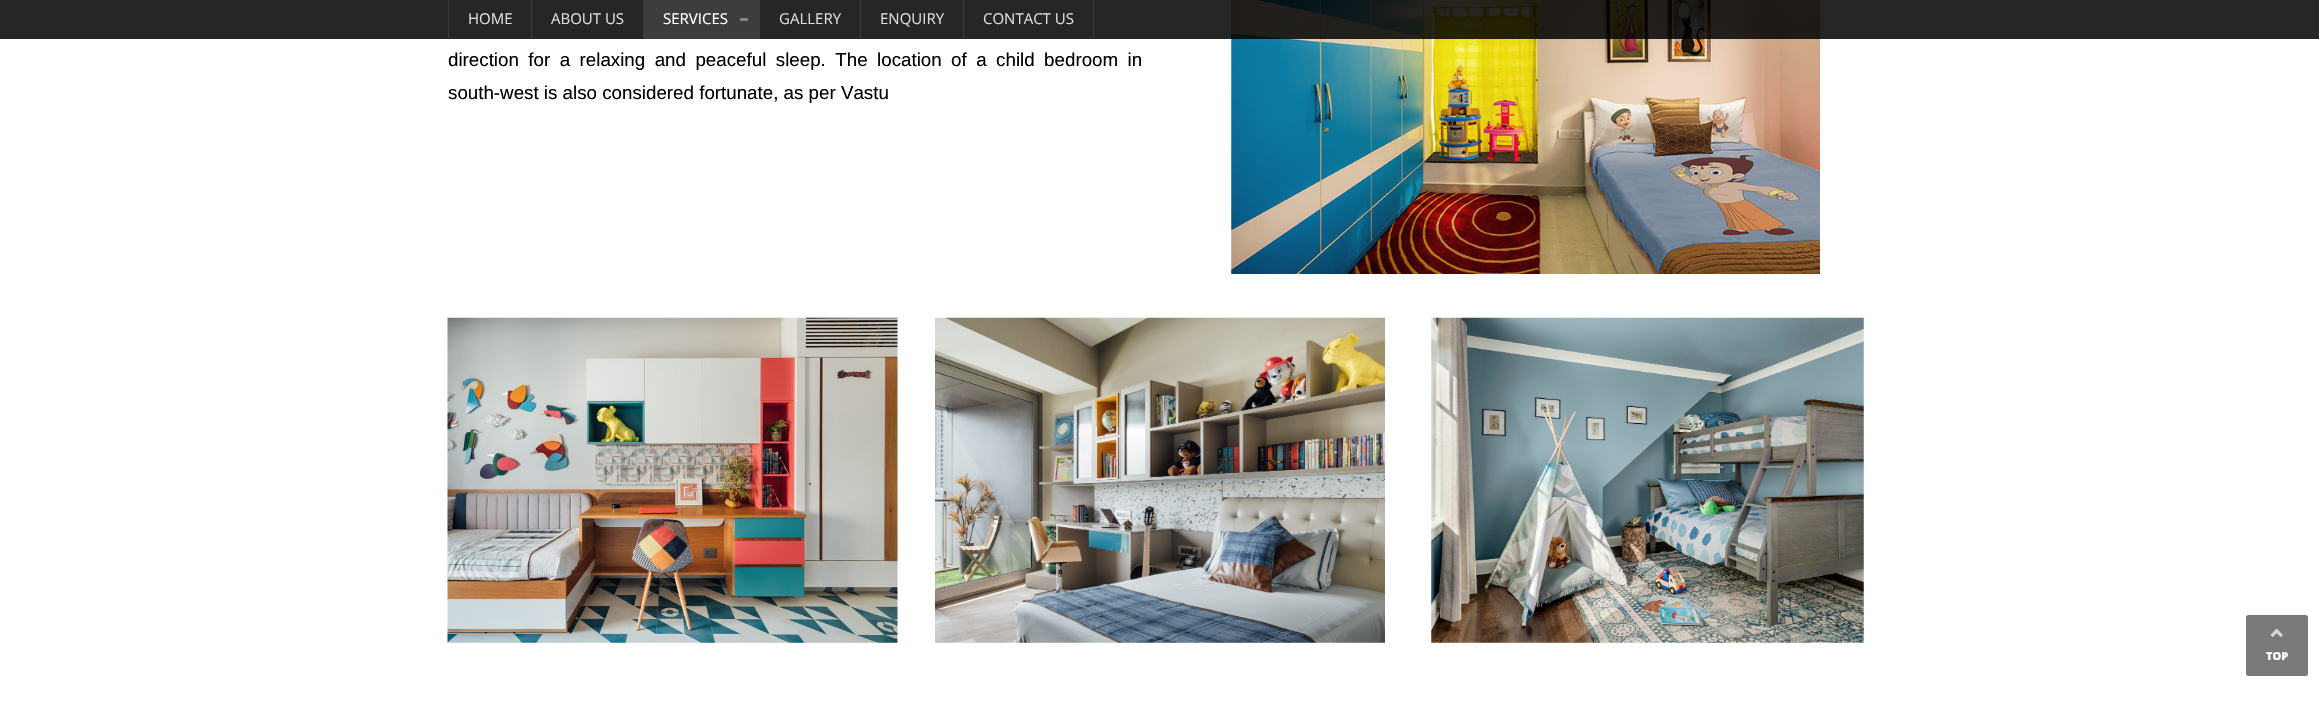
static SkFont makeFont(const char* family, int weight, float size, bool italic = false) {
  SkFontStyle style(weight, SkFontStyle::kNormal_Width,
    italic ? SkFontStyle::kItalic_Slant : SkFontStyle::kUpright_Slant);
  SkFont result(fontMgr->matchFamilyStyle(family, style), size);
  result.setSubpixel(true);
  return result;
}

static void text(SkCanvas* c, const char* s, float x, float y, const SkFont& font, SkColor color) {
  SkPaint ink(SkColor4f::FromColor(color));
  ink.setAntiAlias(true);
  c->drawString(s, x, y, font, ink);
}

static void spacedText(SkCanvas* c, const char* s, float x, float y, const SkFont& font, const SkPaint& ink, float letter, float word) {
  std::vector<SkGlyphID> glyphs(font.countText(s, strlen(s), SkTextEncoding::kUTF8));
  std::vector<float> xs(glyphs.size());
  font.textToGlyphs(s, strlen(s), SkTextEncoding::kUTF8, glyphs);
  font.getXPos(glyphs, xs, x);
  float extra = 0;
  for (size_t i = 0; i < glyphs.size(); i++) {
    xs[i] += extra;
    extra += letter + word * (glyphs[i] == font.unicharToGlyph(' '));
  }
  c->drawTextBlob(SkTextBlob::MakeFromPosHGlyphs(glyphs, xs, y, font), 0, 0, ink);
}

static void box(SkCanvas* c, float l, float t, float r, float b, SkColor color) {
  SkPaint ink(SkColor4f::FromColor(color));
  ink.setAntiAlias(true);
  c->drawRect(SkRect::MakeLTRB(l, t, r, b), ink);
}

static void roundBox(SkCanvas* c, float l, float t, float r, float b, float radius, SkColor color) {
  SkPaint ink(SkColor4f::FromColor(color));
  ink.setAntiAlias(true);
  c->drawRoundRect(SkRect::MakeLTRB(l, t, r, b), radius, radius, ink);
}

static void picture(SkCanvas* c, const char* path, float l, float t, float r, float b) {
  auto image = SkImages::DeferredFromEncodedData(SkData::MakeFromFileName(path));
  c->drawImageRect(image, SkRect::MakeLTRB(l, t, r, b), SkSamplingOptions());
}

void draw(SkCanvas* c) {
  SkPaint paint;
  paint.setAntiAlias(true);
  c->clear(0xffffffff);
  picture(c, "img_01.png", 1231, 0, 1820, 274);
  box(c, 0, 0, 2319, 39, 0xd9000000);
  box(c, 448, 0, 449, 39, 0x1affffff);
  SkFont face1 = makeFont("Open Sans", 400, 15);
  text(c, "HOME", 468, 24, face1, 0xffdddddd);
  box(c, 531, 0, 532, 39, 0x1affffff);
  text(c, "ABOUT US", 551, 24, face1, 0xffdddddd);
  box(c, 643, 0, 644, 39, 0x1affffff);
  box(c, 644, 0, 759, 39, 0xff3d3d3d);
  text(c, "SERVICES", 663, 24, face1, 0xffffffff);
  box(c, 740, 18, 748, 21, 0xff858585);
  box(c, 759, 0, 760, 39, 0x1affffff);
  text(c, "GALLERY", 779, 24, face1, 0xffdddddd);
  box(c, 860, 0, 861, 39, 0x1affffff);
  text(c, "ENQUIRY", 880, 24, face1, 0xffdddddd);
  box(c, 1093, 0, 1094, 39, 0x1affffff);
  box(c, 963, 0, 964, 39, 0x1affffff);
  text(c, "CONTACT US", 983, 24, face1, 0xffdddddd);
  SkFont face2 = makeFont("Liberation Sans", 400, 18.75f);
  paint.setColor(0xff000000);
  spacedText(c, "direction for a relaxing and peaceful sleep. The location of a child bedroom in", 448, 66, face2, paint, 0, 4.25f);
  text(c, "south-west is also considered fortunate, as per Vastu", 448, 99, face2, 0xff000000);
  picture(c, "img_02.png", 447, 317, 898, 643);
  picture(c, "img_03.png", 935, 317, 1385, 643);
  picture(c, "img_04.png", 1431, 317, 1864, 643);
  roundBox(c, 2246, 615, 2308, 676, 2.5f, 0xff797979);
  picture(c, "img_05.png", 2270, 628, 2283, 637);
  SkFont face3 = makeFont("Open Sans", 800, 11);
  text(c, "TOP", 2266, 660, face3, 0xffffffff);
}
